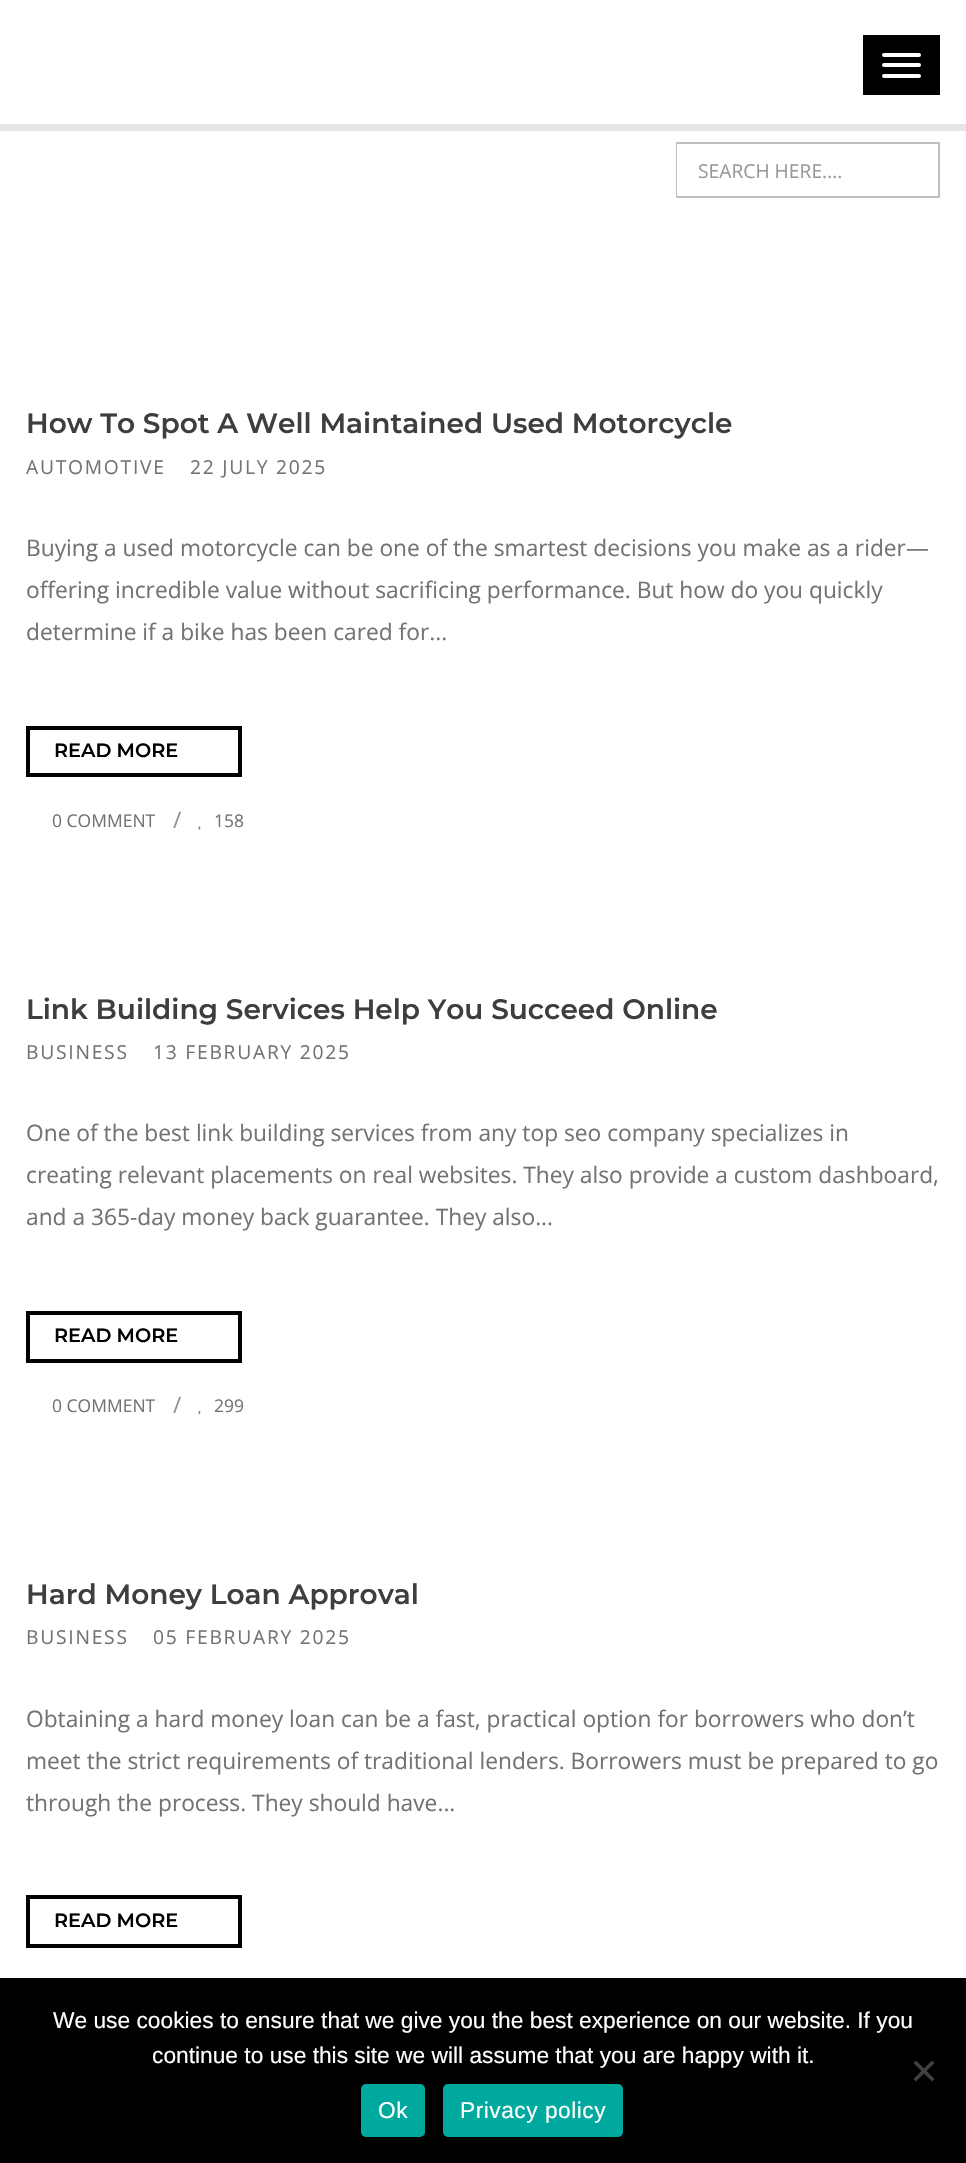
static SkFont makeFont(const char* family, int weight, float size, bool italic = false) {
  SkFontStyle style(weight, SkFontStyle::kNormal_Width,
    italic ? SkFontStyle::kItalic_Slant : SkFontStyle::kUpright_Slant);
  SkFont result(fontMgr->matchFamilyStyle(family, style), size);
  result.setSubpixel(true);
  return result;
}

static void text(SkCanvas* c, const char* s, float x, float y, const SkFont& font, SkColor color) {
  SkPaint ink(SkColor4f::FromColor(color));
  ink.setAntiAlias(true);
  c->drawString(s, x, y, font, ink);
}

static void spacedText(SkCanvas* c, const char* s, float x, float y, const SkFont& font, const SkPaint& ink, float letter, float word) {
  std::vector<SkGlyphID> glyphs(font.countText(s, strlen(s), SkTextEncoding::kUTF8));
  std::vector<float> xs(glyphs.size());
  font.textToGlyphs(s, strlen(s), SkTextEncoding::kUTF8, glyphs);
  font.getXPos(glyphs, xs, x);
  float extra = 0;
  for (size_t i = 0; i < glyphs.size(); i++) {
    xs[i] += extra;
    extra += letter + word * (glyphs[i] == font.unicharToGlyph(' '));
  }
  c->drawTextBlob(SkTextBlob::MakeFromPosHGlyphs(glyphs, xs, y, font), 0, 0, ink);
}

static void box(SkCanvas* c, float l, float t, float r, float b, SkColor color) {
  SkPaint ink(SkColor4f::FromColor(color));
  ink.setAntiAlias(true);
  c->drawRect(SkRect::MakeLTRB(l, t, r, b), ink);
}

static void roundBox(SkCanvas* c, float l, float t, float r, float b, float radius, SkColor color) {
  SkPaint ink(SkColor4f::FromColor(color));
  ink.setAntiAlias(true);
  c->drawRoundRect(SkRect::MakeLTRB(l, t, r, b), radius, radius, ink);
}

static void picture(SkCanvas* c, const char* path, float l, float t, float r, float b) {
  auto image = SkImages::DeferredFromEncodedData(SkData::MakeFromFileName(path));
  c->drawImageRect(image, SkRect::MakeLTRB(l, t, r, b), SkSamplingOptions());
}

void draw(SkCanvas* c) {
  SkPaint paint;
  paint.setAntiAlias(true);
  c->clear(0xffffffff);
  box(c, 863, 35, 940, 95, 0xff000000);
  roundBox(c, 882, 53, 921, 57, 2, 0xffffffff);
  roundBox(c, 882, 63, 921, 67, 2, 0xffffffff);
  roundBox(c, 882, 74, 921, 78, 2, 0xffffffff);
  box(c, 0, 124, 966, 131, 0xffe6e6e6);
  paint.setColor(0xffbfbfbf);
  c->drawPath(SkPathBuilder().moveTo(676, 142).lineTo(894, 142).lineTo(894, 144).lineTo(677, 144).close().detach(), paint);
  c->drawPath(SkPathBuilder().moveTo(894, 198).lineTo(676, 198).lineTo(677, 196).lineTo(894, 196).close().detach(), paint);
  paint.setColor(0x40000000);
  c->drawPath(SkPathBuilder().moveTo(676, 198).lineTo(676, 142).lineTo(677, 144).lineTo(677, 196).close().detach(), paint);
  SkFont face1 = makeFont("Open Sans", 400, 19.25f);
  text(c, "SEARCH HERE....", 698, 178, face1, 0xff999999);
  box(c, 886, 142, 894, 198, 0xffffffff);
  paint.setColor(0xffbfbfbf);
  c->drawPath(SkPathBuilder().moveTo(886, 142).lineTo(940, 142).lineTo(938, 144).lineTo(886, 144).close().detach(), paint);
  paint.setColor(0x40000000);
  c->drawPath(SkPathBuilder().moveTo(940, 142).lineTo(940, 198).lineTo(938, 196).lineTo(938, 144).close().detach(), paint);
  c->drawPath(SkPathBuilder().moveTo(940, 198).lineTo(886, 198).lineTo(886, 196).lineTo(938, 196).close().detach(), paint);
  SkFont face2 = makeFont("Montserrat", 600, 28);
  text(c, "How To Spot A Well Maintained Used Motorcycle", 26, 433, face2, 0xff3e3e3e);
  paint.setColor(0xff737373);
  spacedText(c, "AUTOMOTIVE", 26, 474, face1, paint, 1.75f, 0);
  spacedText(c, "22 JULY 2025", 190, 474, face1, paint, 1.75f, 0);
  SkFont face3 = makeFont("Open Sans", 400, 22.75f);
  text(c, "Buying a used motorcycle can be one of the smartest decisions you make as a rider—", 26, 556, face3, 0xff737373);
  text(c, "offering incredible value without sacrificing performance. But how do you quickly", 26, 598, face3, 0xff737373);
  text(c, "determine if a bike has been cared for...", 26, 640, face3, 0xff737373);
  paint.setStyle(SkPaint::kStroke_Style);
  paint.setStrokeWidth(4);
  paint.setColor(0xff000000);
  c->drawRect(SkRect::MakeLTRB(28, 728, 240, 775), paint);
  SkFont face4 = makeFont("Montserrat", 600, 19.25f);
  text(c, "READ MORE", 54, 757, face4, 0xff000000);
  SkFont face5 = makeFont("Open Sans", 400, 17.5f);
  text(c, "0 COMMENT", 52, 827, face5, 0xff737373);
  text(c, "/", 173, 828, face3, 0xff939393);
  picture(c, "img_01.png", 198, 826, 201, 830);
  text(c, "158", 214, 827, face5, 0xff737373);
  text(c, "Link Building Services Help You Succeed Online", 26, 1019, face2, 0xff3e3e3e);
  paint.setStyle(SkPaint::kFill_Style);
  paint.setColor(0xff737373);
  spacedText(c, "BUSINESS", 26, 1059, face1, paint, 1.75f, 0);
  spacedText(c, "13 FEBRUARY 2025", 153, 1059, face1, paint, 1.75f, 0);
  text(c, "One of the best link building services from any top seo company specializes in", 26, 1141, face3, 0xff737373);
  text(c, "creating relevant placements on real websites. They also provide a custom dashboard,", 26, 1183, face3, 0xff737373);
  text(c, "and a 365-day money back guarantee. They also...", 26, 1225, face3, 0xff737373);
  paint.setStyle(SkPaint::kStroke_Style);
  paint.setColor(0xff000000);
  c->drawRect(SkRect::MakeLTRB(28, 1313, 240, 1361), paint);
  text(c, "READ MORE", 54, 1342, face4, 0xff000000);
  text(c, "0 COMMENT", 52, 1412, face5, 0xff737373);
  text(c, "/", 173, 1413, face3, 0xff939393);
  picture(c, "img_02.png", 198, 1411, 201, 1415);
  text(c, "299", 214, 1412, face5, 0xff737373);
  text(c, "Hard Money Loan Approval", 26, 1604, face2, 0xff3e3e3e);
  paint.setStyle(SkPaint::kFill_Style);
  paint.setColor(0xff737373);
  spacedText(c, "BUSINESS", 26, 1644, face1, paint, 1.75f, 0);
  spacedText(c, "05 FEBRUARY 2025", 153, 1644, face1, paint, 1.75f, 0);
  text(c, "Obtaining a hard money loan can be a fast, practical option for borrowers who don’t", 26, 1727, face3, 0xff737373);
  text(c, "meet the strict requirements of traditional lenders. Borrowers must be prepared to go", 26, 1769, face3, 0xff737373);
  text(c, "through the process. They should have...", 26, 1811, face3, 0xff737373);
  paint.setStyle(SkPaint::kStroke_Style);
  paint.setColor(0xff000000);
  c->drawRect(SkRect::MakeLTRB(28, 1897, 240, 1946), paint);
  text(c, "READ MORE", 54, 1927, face4, 0xff000000);
  box(c, 0, 1978, 966, 2163, 0xff000000);
  SkFont face6 = makeFont("Liberation Sans", 400, 22.75f);
  text(c, "We use cookies to ensure that we give you the best experience on our website. If you", 53, 2028, face6, 0xffffffff);
  text(c, "continue to use this site we will assume that you are happy with it.", 152, 2063, face6, 0xffffffff);
  paint.setStyle(SkPaint::kFill_Style);
  paint.setColor(0xff404040);
  c->drawPath(SkPathBuilder().moveTo(932, 2060.5f).lineTo(934.5f, 2063).lineTo(916, 2081.5f).lineTo(913.5f, 2079).close().detach(), paint);
  c->drawPath(SkPathBuilder().moveTo(913.5f, 2063).lineTo(916, 2060.5f).lineTo(934.5f, 2079).lineTo(932, 2081.5f).close().detach(), paint);
  roundBox(c, 361, 2084, 425, 2137, 5, 0xff00a99d);
  paint.setColor(0xffffffff);
  spacedText(c, "Ok", 378, 2118, face6, paint, 0.5f, 0);
  roundBox(c, 443, 2084, 623, 2137, 5, 0xff00a99d);
  spacedText(c, "Privacy policy", 460, 2118, face6, paint, 0.5f, 0);
}
